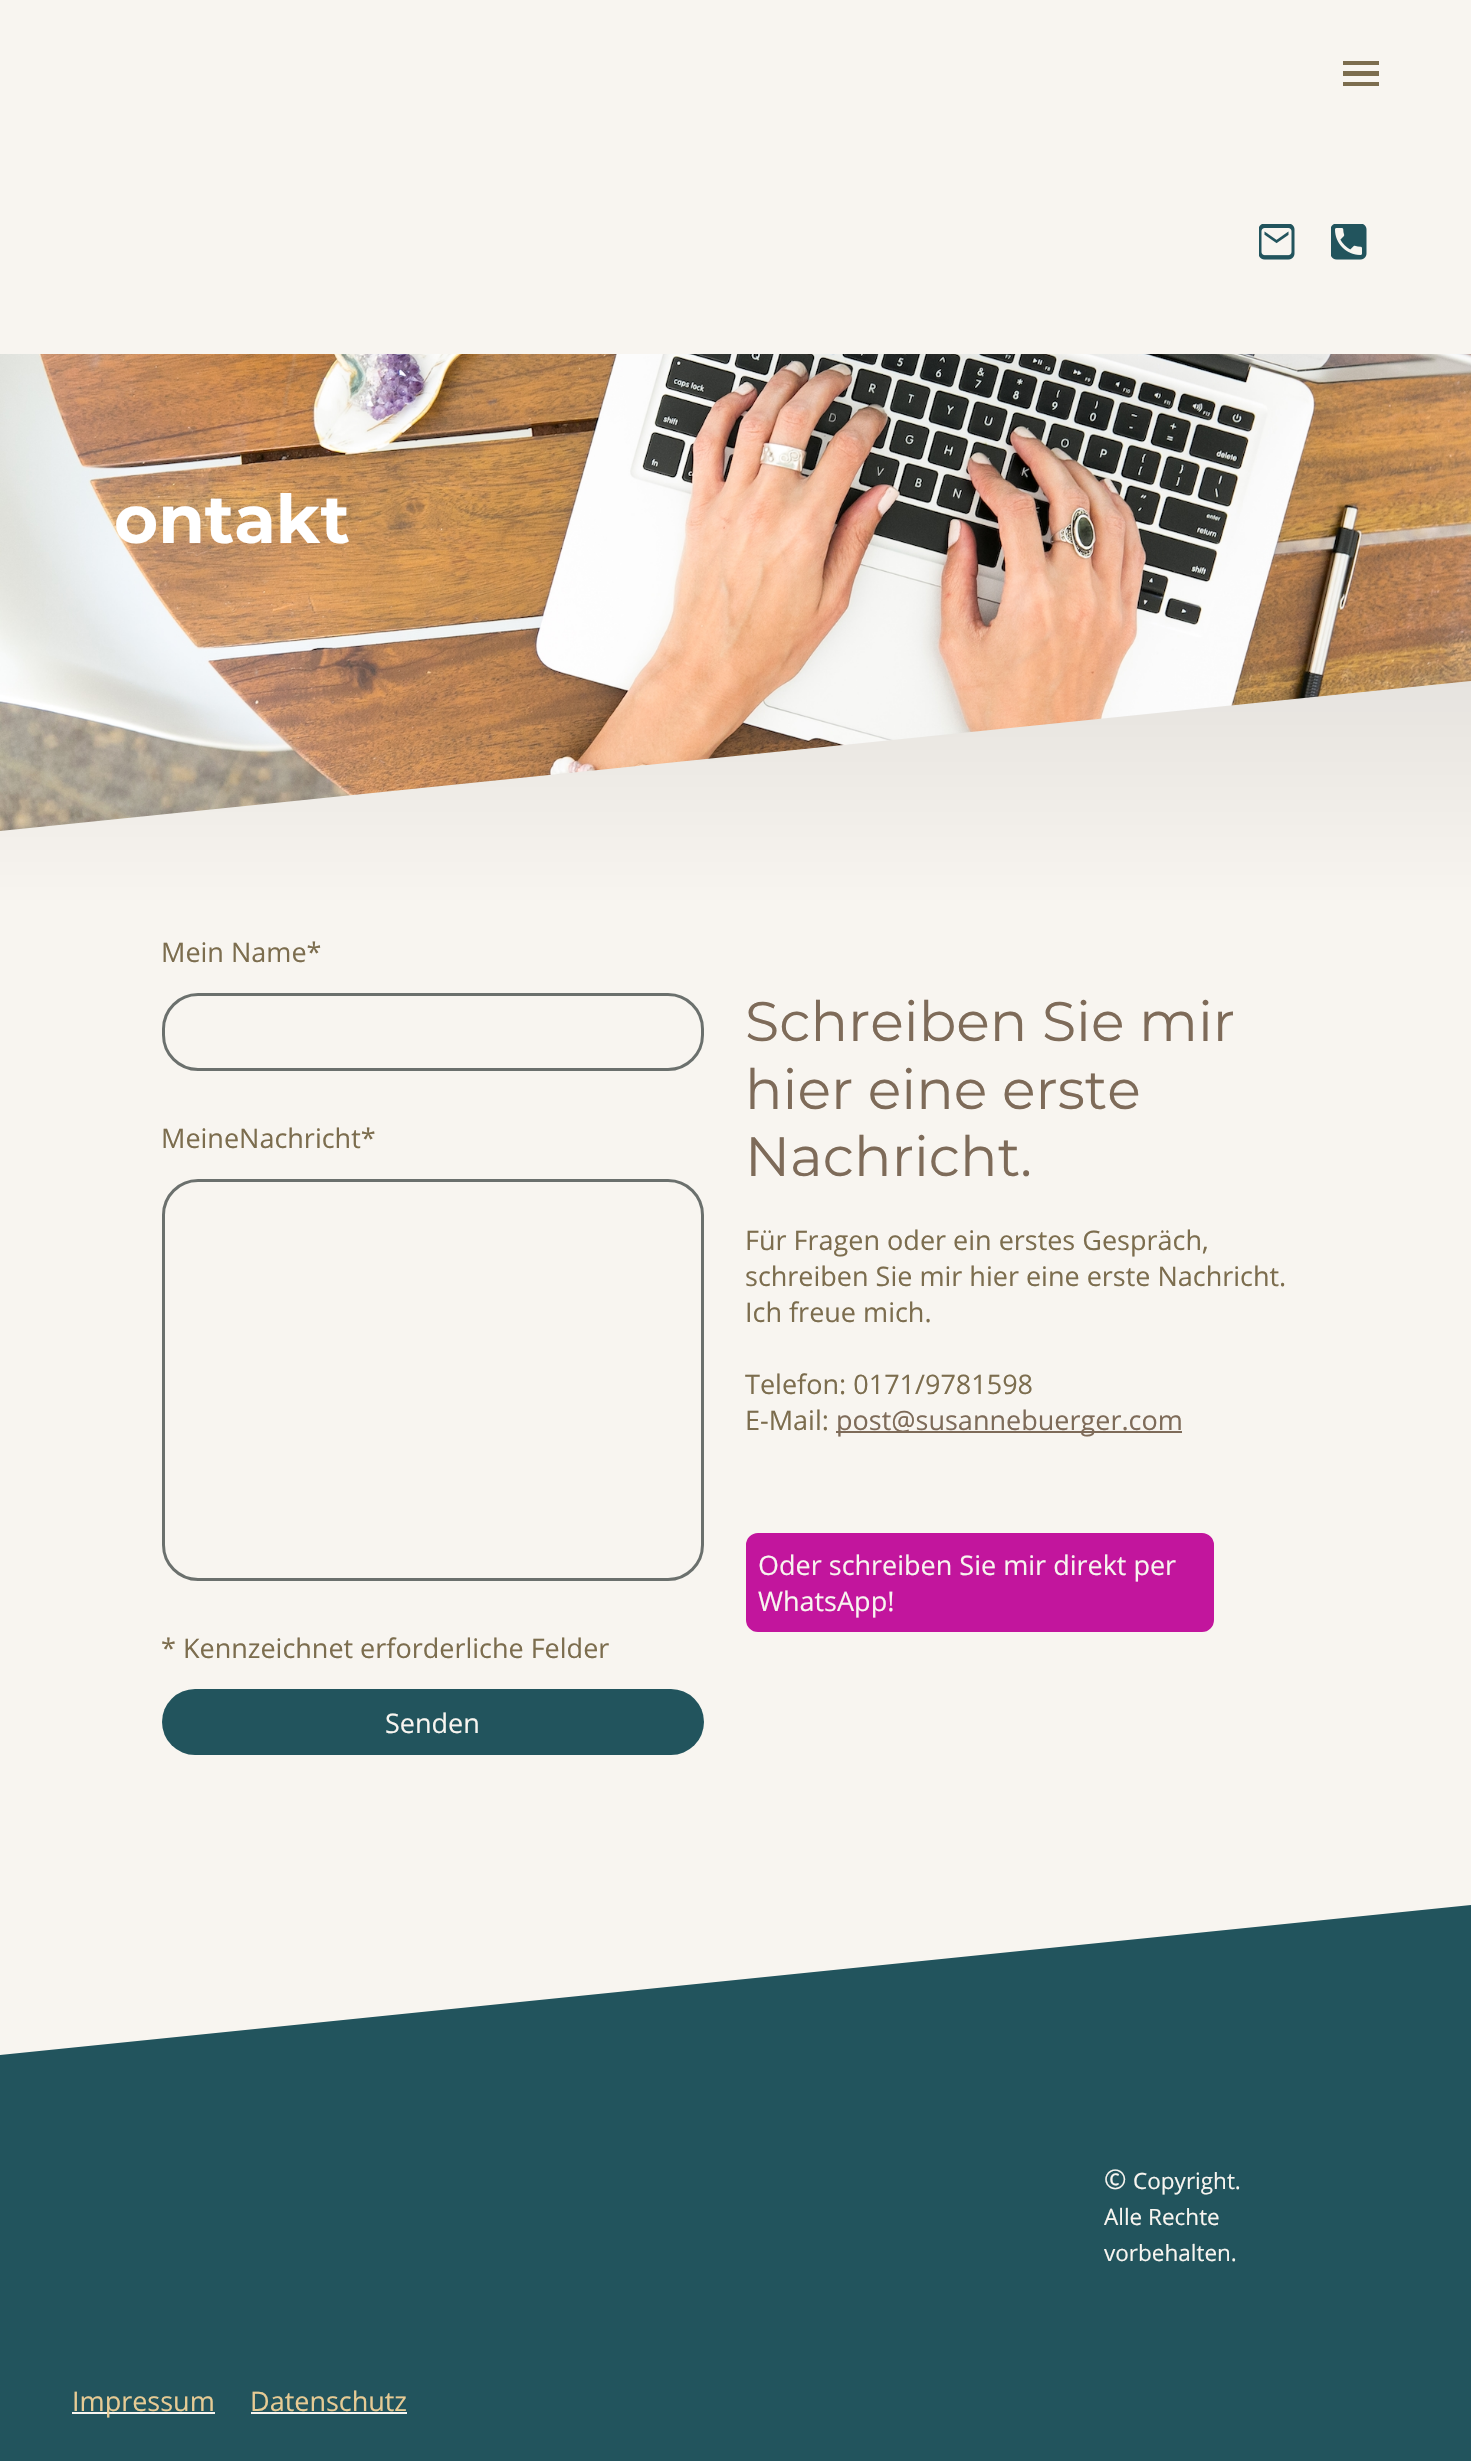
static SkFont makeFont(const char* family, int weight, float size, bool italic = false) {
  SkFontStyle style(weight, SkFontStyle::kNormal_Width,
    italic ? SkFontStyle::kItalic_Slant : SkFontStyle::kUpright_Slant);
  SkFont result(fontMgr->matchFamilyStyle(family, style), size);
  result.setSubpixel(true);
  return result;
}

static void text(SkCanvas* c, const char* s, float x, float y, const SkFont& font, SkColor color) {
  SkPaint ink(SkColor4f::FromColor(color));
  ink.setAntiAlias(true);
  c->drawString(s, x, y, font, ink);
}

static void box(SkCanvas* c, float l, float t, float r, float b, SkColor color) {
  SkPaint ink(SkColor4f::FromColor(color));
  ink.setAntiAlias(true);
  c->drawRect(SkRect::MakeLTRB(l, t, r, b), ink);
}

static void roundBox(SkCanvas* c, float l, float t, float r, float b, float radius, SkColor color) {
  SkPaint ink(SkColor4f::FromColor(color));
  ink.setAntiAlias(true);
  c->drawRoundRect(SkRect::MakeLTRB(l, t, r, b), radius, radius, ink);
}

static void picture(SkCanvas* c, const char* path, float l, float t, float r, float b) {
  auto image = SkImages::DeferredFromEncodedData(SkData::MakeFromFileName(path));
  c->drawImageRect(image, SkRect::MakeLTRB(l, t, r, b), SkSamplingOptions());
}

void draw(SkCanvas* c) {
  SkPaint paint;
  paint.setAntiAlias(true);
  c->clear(0xfff8f5f0);
  box(c, 1343, 61, 1379, 65, 0xff7c6d4e);
  box(c, 1343, 71, 1379, 76, 0xff7c6d4e);
  box(c, 1343, 82, 1379, 86, 0xff7c6d4e);
  picture(c, "img_01.png", 1259, 224, 1295, 260);
  picture(c, "img_02.png", 1331, 224, 1367, 260);
  picture(c, "img_03.png", 0, 354, 1471, 831);
  SkFont face1 = makeFont("Montserrat", 700, 67.5f);
  text(c, "ontakt", 114, 543, face1, 0xffffffff);
  paint.setColor(0xfff8f5f0);
  c->drawPath(SkPathBuilder().moveTo(0, 831).lineTo(0, 2055).lineTo(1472, 2055).lineTo(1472, 681).close().detach(), paint);
  {
    const SkColor colors[] = {0x12000000, 0x00000000};
    const float stops[] = {0, 1};
    const SkPoint ends[] = {{736, 681}, {736, 906}};
    paint.setShader(SkGradientShader::MakeLinear(ends, colors, stops, 2, SkTileMode::kClamp));
    paint.setAlpha(255);
  }
  c->drawPath(SkPathBuilder().moveTo(0, 831).lineTo(0, 906).lineTo(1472, 906).lineTo(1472, 681).close().detach(), paint);
  SkFont face2 = makeFont("Open Sans", 400, 27);
  text(c, "Mein Name*", 161, 962, face2, 0xff7c6d4e);
  paint.setStyle(SkPaint::kStroke_Style);
  paint.setStrokeWidth(3);
  paint.setShader(nullptr);
  paint.setColor(0xff6b706d);
  c->drawRoundRect(SkRect::MakeLTRB(163.5f, 994.5f, 702.5f, 1069.5f), 34.5f, 34.5f, paint);
  text(c, "MeineNachricht*", 161, 1148, face2, 0xff7c6d4e);
  c->drawRoundRect(SkRect::MakeLTRB(163.5f, 1180.5f, 702.5f, 1579.5f), 34.5f, 34.5f, paint);
  text(c, "* Kennzeichnet erforderliche Felder", 161, 1658, face2, 0xff7c6d4e);
  roundBox(c, 162, 1689, 704, 1755, 33, 0xff22545d);
  text(c, "Senden", 385, 1733, face2, 0xfff8f5f0);
  SkFont face3 = makeFont("Montserrat", 400, 55.5f);
  text(c, "Schreiben Sie mir", 745, 1041, face3, 0xff7e6b59);
  text(c, "hier eine erste", 745, 1109, face3, 0xff7e6b59);
  text(c, "Nachricht.", 745, 1176, face3, 0xff7e6b59);
  text(c, "Für Fragen oder ein erstes Gespräch,", 745, 1250, face2, 0xff7c6d4e);
  text(c, "schreiben Sie mir hier eine erste Nachricht.", 745, 1286, face2, 0xff7c6d4e);
  text(c, "Ich freue mich.", 745, 1322, face2, 0xff7c6d4e);
  text(c, "Telefon: 0171/9781598", 745, 1394, face2, 0xff7c6d4e);
  text(c, "E-Mail:", 745, 1430, face2, 0xff7c6d4e);
  box(c, 836, 1431, 1182, 1433, 0xff7e6b59);
  text(c, "post@susannebuerger.com", 836, 1430, face2, 0xff7e6b59);
  paint.setStyle(SkPaint::kFill_Style);
  paint.setColor(0xffc2159d);
  c->drawRoundRect(SkRect::MakeLTRB(747, 1534, 1213, 1631), 11, 11, paint);
  paint.setStyle(SkPaint::kStroke_Style);
  paint.setStrokeWidth(2);
  c->drawRoundRect(SkRect::MakeLTRB(747, 1534, 1213, 1631), 11, 11, paint);
  text(c, "Oder schreiben Sie mir direkt per", 758, 1575, face2, 0xfff8f5f0);
  text(c, "WhatsApp!", 758, 1611, face2, 0xfff8f5f0);
  paint.setStyle(SkPaint::kFill_Style);
  paint.setColor(0xff22545d);
  c->drawPath(SkPathBuilder().moveTo(0, 2055).lineTo(0, 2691).lineTo(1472, 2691).lineTo(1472, 1905).close().detach(), paint);
  text(c, "©", 1104, 2189, face2, 0xfff8f5f0);
  SkFont face4 = makeFont("Open Sans", 400, 22.5f);
  text(c, "Copyright.", 1133, 2189, face4, 0xfff8f5f0);
  text(c, "Alle Rechte", 1104, 2225, face4, 0xfff8f5f0);
  text(c, "vorbehalten.", 1104, 2261, face4, 0xfff8f5f0);
  box(c, 72, 2412, 215, 2414, 0xfff8f5f0);
  text(c, "Impressum", 72, 2411, face2, 0xffe7cb94);
  text(c, "Datenschutz", 250, 2411, face2, 0xffe7cb94);
  box(c, 251, 2412, 407, 2414, 0xfff8f5f0);
}
